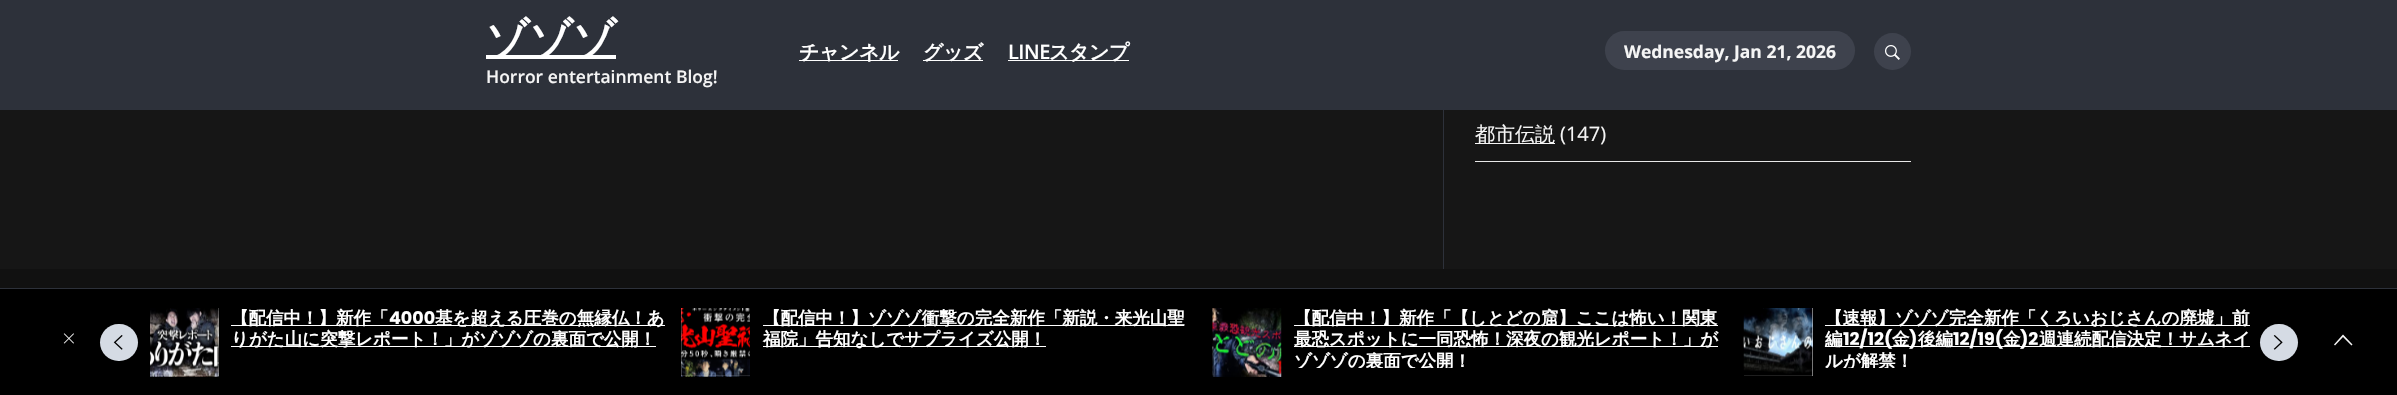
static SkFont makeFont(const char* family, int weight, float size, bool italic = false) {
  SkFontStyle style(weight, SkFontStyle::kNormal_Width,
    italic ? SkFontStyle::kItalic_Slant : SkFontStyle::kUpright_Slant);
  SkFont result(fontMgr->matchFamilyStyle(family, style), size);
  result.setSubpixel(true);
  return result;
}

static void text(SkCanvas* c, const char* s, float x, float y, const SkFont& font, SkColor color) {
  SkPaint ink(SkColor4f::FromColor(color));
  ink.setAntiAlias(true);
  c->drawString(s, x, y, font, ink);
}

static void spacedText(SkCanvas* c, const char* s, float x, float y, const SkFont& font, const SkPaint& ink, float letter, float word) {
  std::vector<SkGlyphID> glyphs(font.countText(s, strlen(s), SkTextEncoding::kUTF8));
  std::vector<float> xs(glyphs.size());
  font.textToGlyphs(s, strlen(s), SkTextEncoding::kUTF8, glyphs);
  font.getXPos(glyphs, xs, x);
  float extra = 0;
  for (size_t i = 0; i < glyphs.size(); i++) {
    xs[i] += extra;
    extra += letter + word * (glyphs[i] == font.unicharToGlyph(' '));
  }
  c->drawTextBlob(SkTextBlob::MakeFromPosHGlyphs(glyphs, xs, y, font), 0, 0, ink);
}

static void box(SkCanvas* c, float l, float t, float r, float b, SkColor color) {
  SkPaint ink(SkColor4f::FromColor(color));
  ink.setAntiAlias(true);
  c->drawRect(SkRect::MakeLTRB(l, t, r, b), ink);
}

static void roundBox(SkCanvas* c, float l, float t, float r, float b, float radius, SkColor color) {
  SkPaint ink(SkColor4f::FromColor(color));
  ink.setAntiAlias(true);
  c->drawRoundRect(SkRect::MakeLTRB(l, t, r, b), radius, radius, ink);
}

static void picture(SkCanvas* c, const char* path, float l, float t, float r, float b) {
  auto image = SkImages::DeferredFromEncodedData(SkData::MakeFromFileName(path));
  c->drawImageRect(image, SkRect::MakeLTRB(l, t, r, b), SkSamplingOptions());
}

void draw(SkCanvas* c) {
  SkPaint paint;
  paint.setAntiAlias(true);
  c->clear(0xff161616);
  box(c, 0, 0, 2397, 110, 0xff2d313a);
  box(c, 486, 55, 616, 59, 0xffffffff);
  SkFont face1 = makeFont("WenQuanYi Zen Hei", 700, 42.5f);
  text(c, "ゾゾゾ", 486, 53, face1, 0xffffffff);
  SkFont face2 = makeFont("Open Sans", 600, 17.5f);
  text(c, "Horror entertainment Blog!", 486, 83, face2, 0xfff5f5f5);
  box(c, 799, 60, 898, 61, 0xffffffff);
  SkFont face3 = makeFont("WenQuanYi Zen Hei", 700, 20);
  paint.setColor(0xffffffff);
  spacedText(c, "チャンネル", 799, 59, face3, paint, -0.5f, 0);
  box(c, 923, 60, 983, 61, 0xffffffff);
  spacedText(c, "グッズ", 923, 59, face3, paint, -0.5f, 0);
  SkFont face4 = makeFont("Open Sans", 600, 20);
  spacedText(c, "LINE", 1008, 59, face4, paint, -0.5f, 0);
  box(c, 1008, 60, 1129, 61, 0xffffffff);
  spacedText(c, "スタンプ", 1049, 59, face3, paint, -0.5f, 0);
  roundBox(c, 1605, 31, 1855, 70, 19.5f, 0xff3e424d);
  SkFont face5 = makeFont("Open Sans", 700, 17.5f);
  text(c, "Wednesday, Jan 21, 2026", 1624, 58, face5, 0xfff5f5f5);
  paint.setColor(0xff3e424d);
  c->drawCircle(1892.5f, 51.5f, 18.5f, paint);
  picture(c, "img_01.png", 1885, 45, 1900, 60);
  box(c, 1443, 110, 1444, 269, 0xff2d313a);
  box(c, 1475, 161, 1911, 162, 0xffe8e8e8);
  box(c, 1475, 143, 1555, 144, 0xfff5f5f5);
  SkFont face6 = makeFont("WenQuanYi Zen Hei", 500, 20);
  text(c, "都市伝説", 1475, 141, face6, 0xfff5f5f5);
  SkFont face7 = makeFont("Open Sans", 400, 20);
  text(c, "(147)", 1560, 141, face7, 0xfff5f5f5);
  box(c, 0, 269, 2397, 288, 0xff111111);
  box(c, 0, 289, 2397, 395, 0xff000000);
  box(c, 0, 288, 2397, 289, 0xff2d313a);
  picture(c, "img_02.png", 63, 333, 74, 344);
  roundBox(c, 100, 324, 138, 361, 18.5f, 0xffd5dbe4);
  picture(c, "img_03.png", 113, 335, 123, 350);
  box(c, 150, 308, 219, 376, 0xffeeeeee);
  picture(c, "img_04.png", 150, 308, 219, 377);
  box(c, 231, 325, 665, 326, 0xffffffff);
  SkFont face8 = makeFont("WenQuanYi Zen Hei", 700, 17.5f);
  text(c, "【配信中！】新作「", 231, 324, face8, 0xffffffff);
  SkFont face9 = makeFont("Poppins", 700, 17.5f);
  text(c, "4000", 389, 324, face9, 0xffffffff);
  text(c, "基を超える圧巻の無縁仏！あ", 435, 324, face8, 0xffffffff);
  box(c, 231, 346, 656, 347, 0xffffffff);
  text(c, "りがた山に突撃レポート！」がゾゾゾの裏面で公開！", 231, 345, face8, 0xffffffff);
  box(c, 681, 308, 750, 376, 0xffeeeeee);
  picture(c, "img_05.png", 681, 308, 750, 377);
  box(c, 763, 325, 1184, 326, 0xffffffff);
  text(c, "【配信中！】ゾゾゾ衝撃の完全新作「新説・来光山聖", 763, 324, face8, 0xffffffff);
  box(c, 763, 346, 1046, 347, 0xffffffff);
  text(c, "福院」告知なしでサプライズ公開！", 763, 345, face8, 0xffffffff);
  picture(c, "img_06.png", 1212, 308, 1282, 377);
  box(c, 1294, 325, 1718, 326, 0xffffffff);
  text(c, "【配信中！】新作「【しとどの窟】ここは怖い！関東", 1294, 324, face8, 0xffffffff);
  box(c, 1294, 346, 1718, 347, 0xffffffff);
  text(c, "最恐スポットに一同恐怖！深夜の観光レポート！」が", 1294, 345, face8, 0xffffffff);
  c->save();
  c->clipRect(SkRect::MakeLTRB(1294, 308, 1731, 368));
  text(c, "ゾゾゾの裏面で公開！", 1294, 367, face8, 0xffffffff);
  c->restore();
  box(c, 1744, 308, 1813, 376, 0xffeeeeee);
  picture(c, "img_07.png", 1743, 308, 1813, 376);
  box(c, 1825, 325, 2250, 326, 0xffffffff);
  text(c, "【速報】ゾゾゾ完全新作「くろいおじさんの廃墟」前", 1825, 324, face8, 0xffffffff);
  box(c, 1825, 346, 2250, 347, 0xffffffff);
  text(c, "編", 1825, 345, face8, 0xffffffff);
  text(c, "12/12(", 1843, 345, face9, 0xffffffff);
  text(c, "金", 1892, 345, face8, 0xffffffff);
  text(c, ")", 1909, 345, face9, 0xffffffff);
  text(c, "後編", 1918, 345, face8, 0xffffffff);
  text(c, "12/19(", 1953, 345, face9, 0xffffffff);
  text(c, "金", 2003, 345, face8, 0xffffffff);
  text(c, ")2", 2020, 345, face9, 0xffffffff);
  text(c, "週連続配信決定！サムネイ", 2039, 345, face8, 0xffffffff);
  c->save();
  c->clipRect(SkRect::MakeLTRB(1825, 308, 2260, 368));
  text(c, "ルが解禁！", 1825, 367, face8, 0xffffffff);
  c->restore();
  roundBox(c, 2260, 324, 2298, 361, 18.5f, 0xffd5dbe4);
  picture(c, "img_08.png", 2273, 335, 2283, 350);
  paint.setColor(0xfff5f5f5);
  c->drawPath(SkPathBuilder().moveTo(2351.5f, 345.5f).lineTo(2343, 337).lineTo(2335, 345.5f).lineTo(2334, 344.5f).lineTo(2343, 334.5f).lineTo(2352.5f, 344.5f).close().detach(), paint);
}
